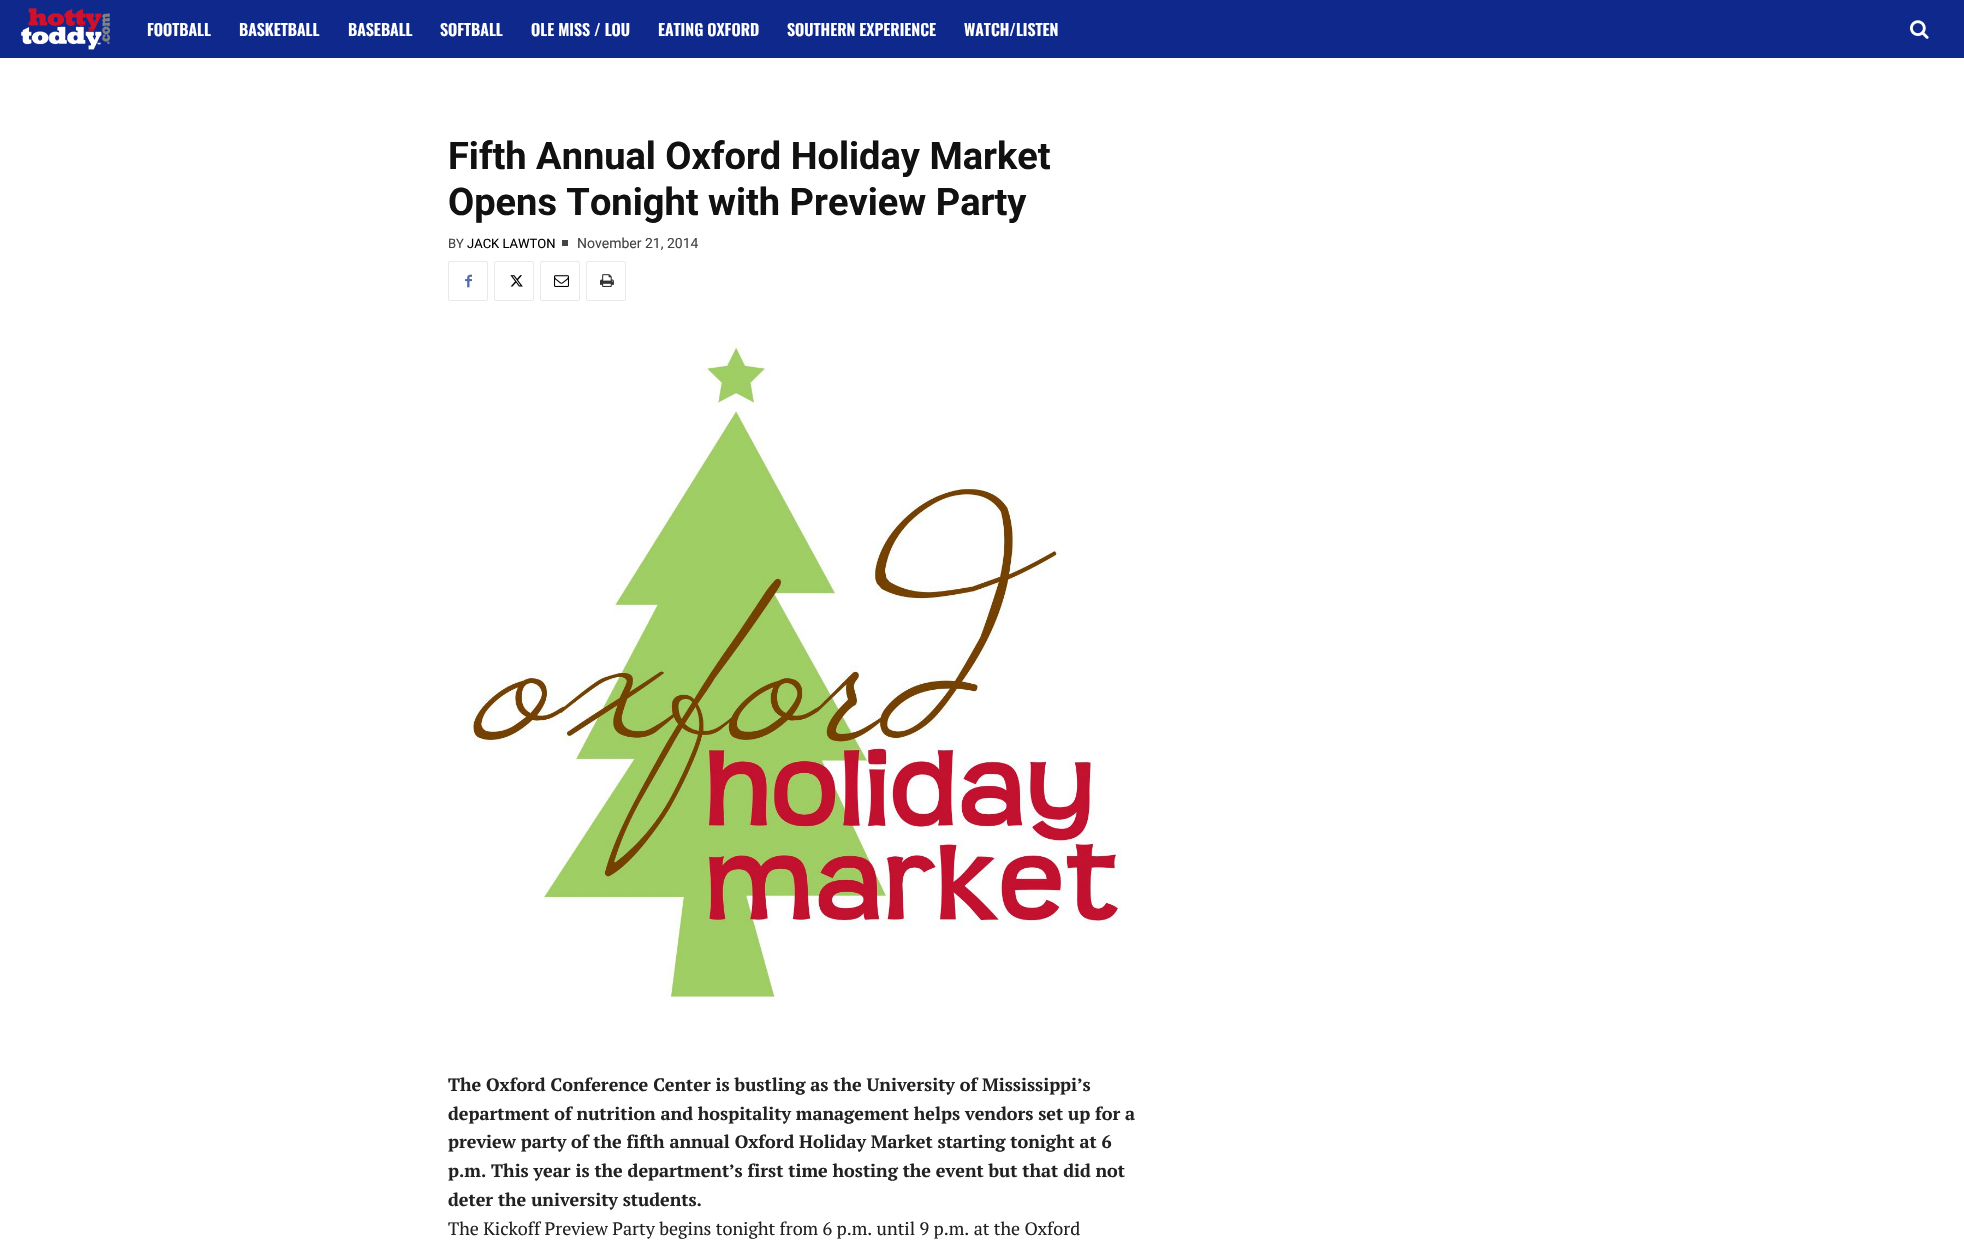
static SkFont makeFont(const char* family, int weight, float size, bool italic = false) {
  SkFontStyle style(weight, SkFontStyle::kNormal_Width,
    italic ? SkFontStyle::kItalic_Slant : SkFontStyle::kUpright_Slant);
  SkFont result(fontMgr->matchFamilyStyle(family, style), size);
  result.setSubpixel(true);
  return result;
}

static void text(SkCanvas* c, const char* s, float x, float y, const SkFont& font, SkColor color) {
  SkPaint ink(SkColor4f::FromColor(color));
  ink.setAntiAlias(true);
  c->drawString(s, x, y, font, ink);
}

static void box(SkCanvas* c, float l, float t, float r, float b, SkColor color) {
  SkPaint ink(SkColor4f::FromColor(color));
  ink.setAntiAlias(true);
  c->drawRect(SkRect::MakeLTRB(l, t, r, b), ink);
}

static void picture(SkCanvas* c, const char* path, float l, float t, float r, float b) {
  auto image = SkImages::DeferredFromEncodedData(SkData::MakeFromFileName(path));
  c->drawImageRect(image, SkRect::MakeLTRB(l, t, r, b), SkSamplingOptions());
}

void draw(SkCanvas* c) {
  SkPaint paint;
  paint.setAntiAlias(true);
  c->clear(0xffffffff);
  box(c, 0, 0, 1964, 58, 0xff0f288c);
  picture(c, "img_01.png", 21, 8, 110, 50);
  SkFont face1 = makeFont("Oswald", 600, 16);
  text(c, "FOOTBALL", 147, 36, face1, 0xffffffff);
  text(c, "BASKETBALL", 239, 36, face1, 0xffffffff);
  text(c, "BASEBALL", 348, 36, face1, 0xffffffff);
  text(c, "SOFTBALL", 440, 36, face1, 0xffffffff);
  text(c, "OLE MISS / LOU", 531, 36, face1, 0xffffffff);
  text(c, "EATING OXFORD", 658, 36, face1, 0xffffffff);
  text(c, "SOUTHERN EXPERIENCE", 787, 36, face1, 0xffffffff);
  text(c, "WATCH/LISTEN", 964, 36, face1, 0xffffffff);
  picture(c, "img_02.png", 1910, 20, 1929, 39);
  SkFont face2 = makeFont("Roboto", 700, 38);
  text(c, "Fifth Annual Oxford Holiday Market", 448, 169, face2, 0xff111111);
  text(c, "Opens Tonight with Preview Party", 448, 215, face2, 0xff111111);
  SkFont face3 = makeFont("Roboto", 400, 13);
  text(c, "BY", 448, 248, face3, 0xff444444);
  text(c, "JACK LAWTON", 467, 248, face3, 0xff000000);
  box(c, 562, 240, 568, 246, 0xff444444);
  SkFont face4 = makeFont("Roboto", 400, 14);
  text(c, "November 21, 2014", 577, 248, face4, 0xff444444);
  paint.setStyle(SkPaint::kStroke_Style);
  paint.setStrokeWidth(1);
  paint.setColor(0xffe9e9e9);
  c->drawRoundRect(SkRect::MakeLTRB(448.5f, 261.5f, 487.5f, 300.5f), 1.5f, 1.5f, paint);
  picture(c, "img_03.png", 465, 274, 472, 288);
  c->drawRoundRect(SkRect::MakeLTRB(494.5f, 261.5f, 533.5f, 300.5f), 1.5f, 1.5f, paint);
  picture(c, "img_04.png", 510, 275, 523, 287);
  c->drawRoundRect(SkRect::MakeLTRB(540.5f, 261.5f, 579.5f, 300.5f), 1.5f, 1.5f, paint);
  picture(c, "img_05.png", 554, 275, 569, 287);
  c->drawRoundRect(SkRect::MakeLTRB(586.5f, 261.5f, 625.5f, 300.5f), 1.5f, 1.5f, paint);
  picture(c, "img_06.png", 600, 274, 614, 287);
  picture(c, "img_07.png", 466, 341, 1121, 997);
  SkFont face5 = makeFont("PT Serif", 700, 18);
  text(c, "The Oxford Conference Center is bustling as the University of Mississippi’s", 448, 1091, face5, 0xff222222);
  text(c, "department of nutrition and hospitality management helps vendors set up for a", 448, 1120, face5, 0xff222222);
  text(c, "preview party of the fifth annual Oxford Holiday Market starting tonight at 6", 448, 1148, face5, 0xff222222);
  text(c, "p.m. This year is the department’s first time hosting the event but that did not", 448, 1177, face5, 0xff222222);
  text(c, "deter the university students.", 448, 1206, face5, 0xff222222);
  SkFont face6 = makeFont("PT Serif", 400, 18);
  text(c, "The Kickoff Preview Party begins tonight from 6 p.m. until 9 p.m. at the Oxford", 448, 1235, face6, 0xff222222);
}
